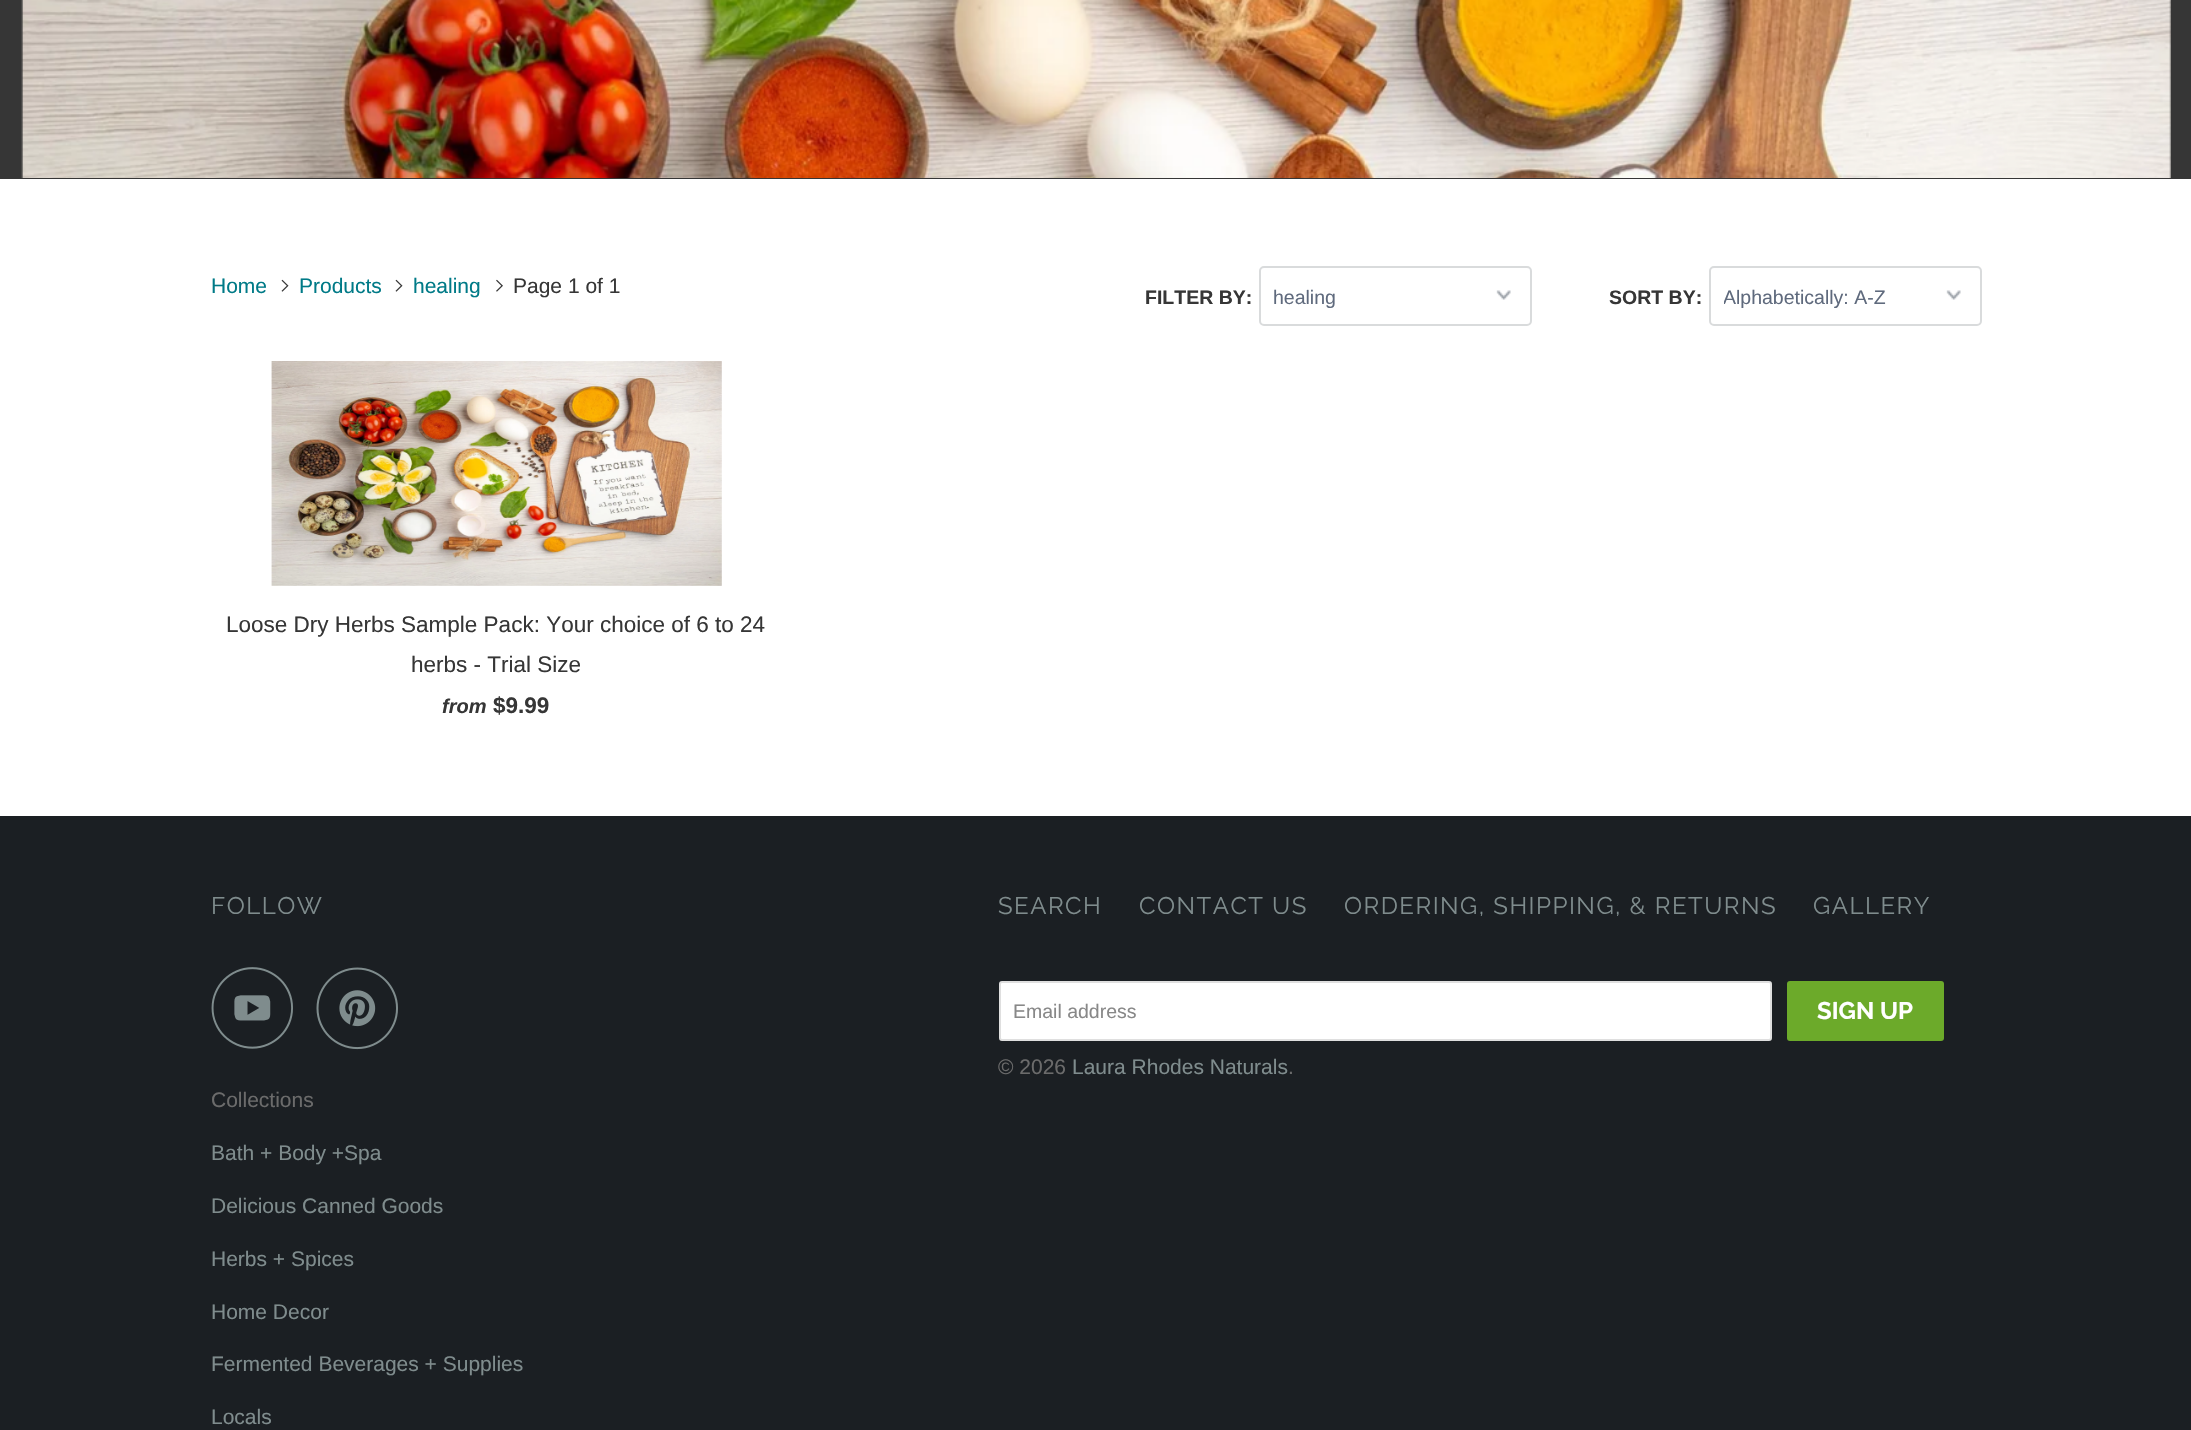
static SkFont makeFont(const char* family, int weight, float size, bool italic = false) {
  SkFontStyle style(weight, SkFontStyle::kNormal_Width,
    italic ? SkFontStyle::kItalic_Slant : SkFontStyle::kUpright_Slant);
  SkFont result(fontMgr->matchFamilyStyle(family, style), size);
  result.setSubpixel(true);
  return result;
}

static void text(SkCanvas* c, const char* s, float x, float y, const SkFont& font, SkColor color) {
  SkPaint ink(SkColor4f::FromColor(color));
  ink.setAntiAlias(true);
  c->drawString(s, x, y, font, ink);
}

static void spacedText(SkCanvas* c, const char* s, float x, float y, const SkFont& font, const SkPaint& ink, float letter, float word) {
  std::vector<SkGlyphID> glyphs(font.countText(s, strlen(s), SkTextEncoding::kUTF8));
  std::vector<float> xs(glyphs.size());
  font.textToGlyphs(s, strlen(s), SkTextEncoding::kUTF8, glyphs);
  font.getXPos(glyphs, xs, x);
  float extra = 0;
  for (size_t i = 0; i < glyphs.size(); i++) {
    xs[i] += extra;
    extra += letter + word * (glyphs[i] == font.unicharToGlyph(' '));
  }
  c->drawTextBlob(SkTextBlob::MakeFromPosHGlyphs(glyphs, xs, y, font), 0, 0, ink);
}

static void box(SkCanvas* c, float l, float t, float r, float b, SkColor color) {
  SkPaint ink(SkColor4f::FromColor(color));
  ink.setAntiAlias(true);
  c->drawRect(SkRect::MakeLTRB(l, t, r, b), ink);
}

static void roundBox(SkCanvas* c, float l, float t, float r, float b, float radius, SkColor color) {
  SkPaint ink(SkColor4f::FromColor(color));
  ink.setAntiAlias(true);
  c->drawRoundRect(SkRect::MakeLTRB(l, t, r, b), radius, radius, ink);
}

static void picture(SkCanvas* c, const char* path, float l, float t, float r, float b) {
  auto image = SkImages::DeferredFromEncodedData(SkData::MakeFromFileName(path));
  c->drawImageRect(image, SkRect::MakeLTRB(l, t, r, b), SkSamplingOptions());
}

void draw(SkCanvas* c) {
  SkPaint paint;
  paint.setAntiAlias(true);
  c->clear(0xffffffff);
  box(c, 0, 0, 2191, 179, 0xff363636);
  picture(c, "img_01.png", 21, 0, 2171, 178);
  SkFont face1 = makeFont("Liberation Sans", 400, 21);
  text(c, "Home", 211, 293, face1, 0xff007a87);
  picture(c, "img_02.png", 281, 279, 289, 292);
  text(c, "Products", 299, 293, face1, 0xff007a87);
  picture(c, "img_02.png", 395, 279, 403, 292);
  text(c, "healing", 413, 293, face1, 0xff007a87);
  picture(c, "img_03.png", 496, 279, 503, 292);
  text(c, "Page 1 of 1", 513, 293, face1, 0xff363636);
  SkFont face2 = makeFont("Liberation Sans", 700, 19.5f);
  text(c, "FILTER BY:", 1145, 304, face2, 0xff363636);
  picture(c, "img_04.png", 1496, 290, 1511, 300);
  paint.setStyle(SkPaint::kStroke_Style);
  paint.setStrokeWidth(2);
  paint.setColor(0xffd9dbdc);
  c->drawRoundRect(SkRect::MakeLTRB(1260, 267, 1531, 325), 4, 4, paint);
  SkFont face3 = makeFont("Liberation Sans", 400, 19.5f);
  text(c, "healing", 1273, 304, face3, 0xff5f6a7d);
  text(c, "SORT BY:", 1609, 304, face2, 0xff363636);
  picture(c, "img_04.png", 1946, 290, 1961, 300);
  c->drawRoundRect(SkRect::MakeLTRB(1710, 267, 1981, 325), 4, 4, paint);
  c->save();
  c->clipRect(SkRect::MakeLTRB(1724, 287, 1967, 309));
  text(c, "Alphabetically: A-Z", 1723, 304, face3, 0xff5f6a7d);
  c->restore();
  picture(c, "img_05.png", 271, 361, 722, 586);
  SkFont face4 = makeFont("Liberation Sans", 400, 22.5f);
  text(c, "Loose Dry Herbs Sample Pack: Your choice of 6 to 24", 226, 632, face4, 0xff363636);
  text(c, "herbs - Trial Size", 411, 672, face4, 0xff363636);
  SkFont face5 = makeFont("Liberation Sans", 700, 20, true);
  text(c, "from", 442, 713, face5, 0xff363636);
  SkFont face6 = makeFont("Liberation Sans", 700, 22.5f);
  text(c, "$9.99", 493, 713, face6, 0xff363636);
  box(c, 0, 816, 2191, 1430, 0xff1b1f23);
  SkFont face7 = makeFont("Raleway", 400, 24);
  paint.setStyle(SkPaint::kFill_Style);
  paint.setColor(0xff7f8c8d);
  spacedText(c, "FOLLOW", 211, 914, face7, paint, 1.5f, 0);
  picture(c, "img_06.png", 211, 967, 293, 1049);
  picture(c, "img_07.png", 316, 967, 398, 1050);
  text(c, "Collections", 211, 1107, face1, 0xff6b6b6b);
  text(c, "Bath + Body +Spa", 211, 1160, face1, 0xff7f8c8d);
  text(c, "Delicious Canned Goods", 211, 1213, face1, 0xff7f8c8d);
  text(c, "Herbs + Spices", 211, 1266, face1, 0xff7f8c8d);
  text(c, "Home Decor", 211, 1319, face1, 0xff7f8c8d);
  text(c, "Fermented Beverages + Supplies", 211, 1371, face1, 0xff7f8c8d);
  text(c, "Locals", 211, 1424, face1, 0xff7f8c8d);
  spacedText(c, "SEARCH", 998, 914, face7, paint, 1.5f, 0);
  spacedText(c, "CONTACT US", 1139, 914, face7, paint, 1.5f, 0);
  spacedText(c, "ORDERING, SHIPPING, & RETURNS", 1344, 914, face7, paint, 1.5f, 0);
  spacedText(c, "GALLERY", 1813, 914, face7, paint, 1.5f, 0);
  paint.setColor(0xffffffff);
  c->drawRoundRect(SkRect::MakeLTRB(1000, 982, 1771, 1040), 2, 2, paint);
  paint.setStyle(SkPaint::kStroke_Style);
  paint.setColor(0xffdfdfdf);
  c->drawRoundRect(SkRect::MakeLTRB(1000, 982, 1771, 1040), 2, 2, paint);
  text(c, "Email address", 1013, 1018, face3, 0xff888888);
  roundBox(c, 1787, 981, 1944, 1041, 3, 0xff6caa2a);
  SkFont face8 = makeFont("Raleway", 700, 24);
  text(c, "SIGN UP", 1817, 1019, face8, 0xffffffff);
  text(c, "© 2026", 998, 1074, face1, 0xff6b6b6b);
  text(c, "Laura Rhodes Naturals", 1072, 1074, face1, 0xff7f8c8d);
  text(c, ".", 1288, 1074, face1, 0xff6b6b6b);
}
